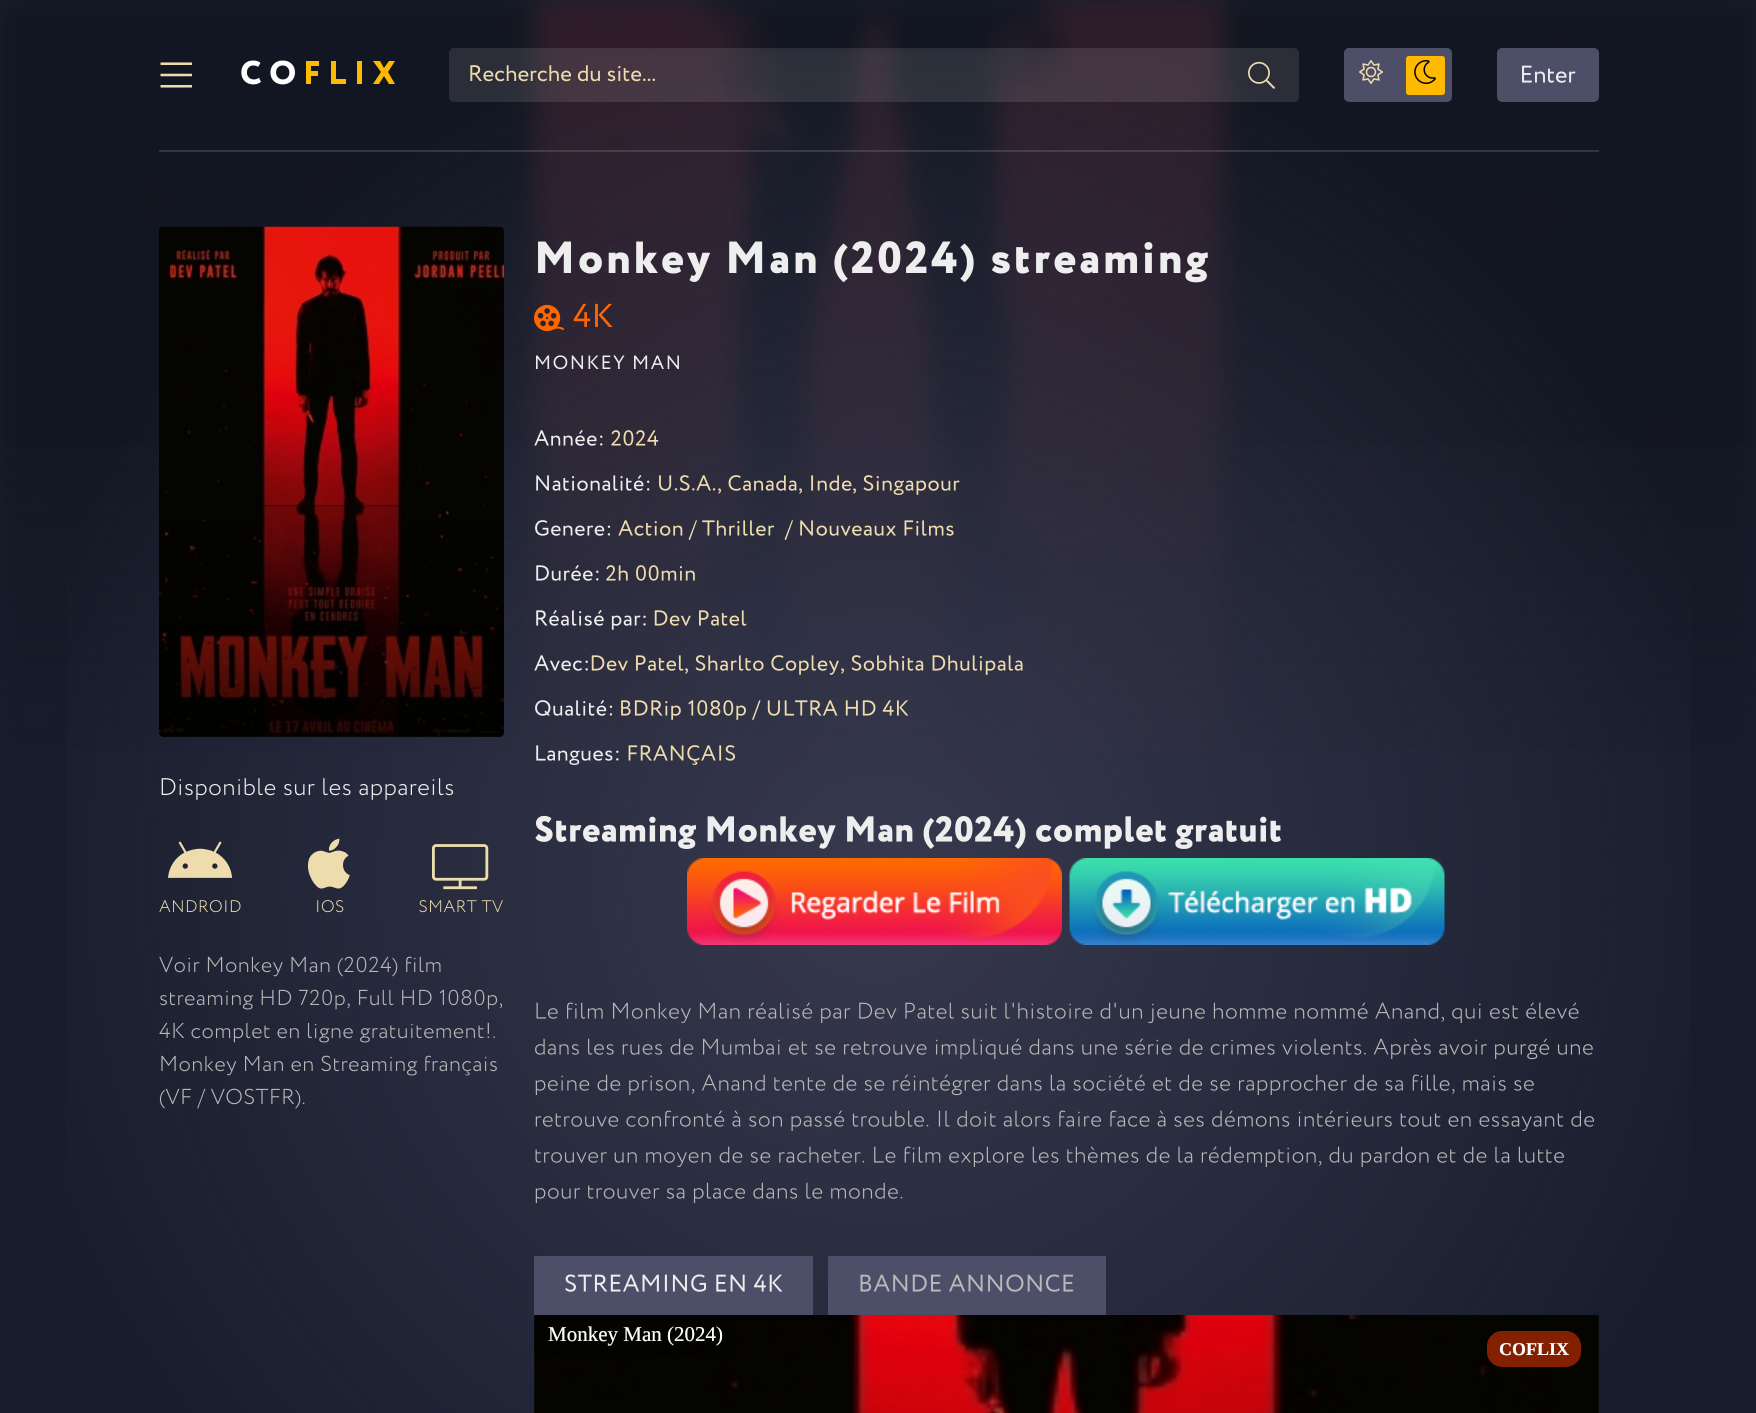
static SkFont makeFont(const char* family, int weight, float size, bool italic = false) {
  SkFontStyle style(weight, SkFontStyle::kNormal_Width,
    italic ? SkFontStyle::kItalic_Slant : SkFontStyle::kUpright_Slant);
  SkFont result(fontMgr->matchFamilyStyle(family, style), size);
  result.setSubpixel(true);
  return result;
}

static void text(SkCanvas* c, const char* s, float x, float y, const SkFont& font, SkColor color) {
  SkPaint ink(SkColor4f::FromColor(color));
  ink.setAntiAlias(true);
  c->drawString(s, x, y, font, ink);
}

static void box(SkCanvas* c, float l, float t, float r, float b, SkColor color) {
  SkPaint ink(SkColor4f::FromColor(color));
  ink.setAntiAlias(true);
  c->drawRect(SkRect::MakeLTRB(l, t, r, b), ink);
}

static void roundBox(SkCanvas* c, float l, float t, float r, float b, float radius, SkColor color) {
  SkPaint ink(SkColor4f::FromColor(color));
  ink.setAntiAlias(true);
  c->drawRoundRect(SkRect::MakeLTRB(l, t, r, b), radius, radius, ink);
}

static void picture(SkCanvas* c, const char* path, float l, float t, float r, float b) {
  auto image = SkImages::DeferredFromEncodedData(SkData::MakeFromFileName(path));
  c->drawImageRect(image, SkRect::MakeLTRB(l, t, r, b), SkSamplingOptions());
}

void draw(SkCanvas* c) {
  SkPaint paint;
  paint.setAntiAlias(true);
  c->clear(0xff181d2d);
  picture(c, "img_01.png", 0, 0, 1756, 750);
  {
    const SkColor colors[] = {0xbd181d2d, 0x00181d2d};
    const float stops[] = {0, 1};
    const SkPoint ends[] = {{878, 750}, {878, 375}};
    paint.setShader(SkGradientShader::MakeLinear(ends, colors, stops, 2, SkTileMode::kClamp));
    paint.setAlpha(255);
  }
  c->drawRect(SkRect::MakeLTRB(0, 444, 1756, 750), paint);
  {
    const SkColor colors[] = {0xff37394e, 0x0037394e};
    const float stops[] = {0, 1};
    paint.setShader(SkGradientShader::MakeRadial({878, 878}, 878, colors, stops, 2, SkTileMode::kClamp));
    paint.setAlpha(255);
  }
  c->drawRect(SkRect::MakeLTRB(66, 54, 1690, 1413), paint);
  box(c, 159, 150, 1599, 152, 0x21ffffff);
  picture(c, "img_02.png", 160, 62, 192, 88);
  picture(c, "img_03.png", 241, 60, 295, 85);
  paint.setShader(nullptr);
  paint.setColor(0xffffb900);
  c->drawPath(SkPathBuilder().moveTo(306, 84).lineTo(306, 61).lineTo(319, 61).lineTo(319, 66).lineTo(311, 66).lineTo(311, 71).lineTo(318, 71).lineTo(318, 76).lineTo(311, 76).lineTo(311, 84).close().moveTo(331, 84).lineTo(331, 61).lineTo(336, 61).lineTo(336, 79).lineTo(346, 79).lineTo(346, 84).close().moveTo(357, 84).lineTo(357, 61).lineTo(362, 61).lineTo(362, 84).close().moveTo(395, 61).lineTo(388, 72).lineTo(395, 84).lineTo(389, 84).lineTo(384, 76).lineTo(379, 84).lineTo(373, 84).lineTo(381, 72).lineTo(373, 61).lineTo(380, 61).lineTo(384, 68).lineTo(389, 61).close().detach(), paint);
  roundBox(c, 449, 48, 1299, 102, 5, 0x1affffff);
  picture(c, "img_04.png", 470, 65, 655, 82);
  picture(c, "img_05.png", 1248, 61, 1275, 89);
  roundBox(c, 1344, 48, 1452, 102, 5, 0xff4d4f69);
  picture(c, "img_06.png", 1359, 60, 1383, 84);
  roundBox(c, 1406, 56, 1445, 95, 3, 0xffffb900);
  picture(c, "img_07.png", 1414, 60, 1436, 84);
  roundBox(c, 1497, 48, 1599, 102, 5, 0xff4d4f69);
  picture(c, "img_08.png", 1522, 65, 1576, 83);
  picture(c, "img_09.png", 159, 226, 504, 737);
  {
    const SkColor colors[] = {0xcc000000, 0x00000000};
    const float stops[] = {0, 1};
    const SkPoint ends[] = {{332, 737}, {332, 431}};
    paint.setShader(SkGradientShader::MakeLinear(ends, colors, stops, 2, SkTileMode::kClamp));
    paint.setAlpha(255);
  }
  c->drawPath(SkPathBuilder().moveTo(159, 431).lineTo(504, 431).lineTo(504, 732).cubicTo(504, 735, 502, 737, 499, 737).lineTo(164, 737).cubicTo(161, 737, 159, 735, 159, 732).close().detach(), paint);
  picture(c, "img_10.png", 161, 778, 454, 800);
  picture(c, "img_11.png", 168, 841, 233, 878);
  picture(c, "img_12.png", 159, 900, 241, 913);
  picture(c, "img_13.png", 307, 838, 350, 889);
  picture(c, "img_14.png", 317, 900, 344, 913);
  picture(c, "img_15.png", 432, 844, 489, 890);
  picture(c, "img_16.png", 419, 900, 503, 913);
  picture(c, "img_17.png", 159, 956, 200, 973);
  picture(c, "img_18.png", 207, 956, 441, 977);
  picture(c, "img_19.png", 160, 989, 503, 1010);
  picture(c, "img_20.png", 159, 1022, 185, 1038);
  picture(c, "img_21.png", 191, 1022, 495, 1043);
  picture(c, "img_22.png", 161, 1055, 497, 1076);
  picture(c, "img_23.png", 159, 1088, 305, 1109);
  picture(c, "img_24.png", 538, 241, 1208, 283);
  picture(c, "img_25.png", 534, 304, 564, 332);
  picture(c, "img_26.png", 573, 303, 613, 327);
  picture(c, "img_27.png", 536, 355, 679, 370);
  picture(c, "img_28.png", 534, 430, 603, 446);
  picture(c, "img_29.png", 611, 430, 659, 446);
  picture(c, "img_30.png", 536, 475, 650, 491);
  picture(c, "img_31.png", 659, 475, 716, 491);
  picture(c, "img_32.png", 718, 488, 721, 494);
  picture(c, "img_33.png", 728, 475, 797, 491);
  picture(c, "img_34.png", 799, 488, 802, 494);
  picture(c, "img_35.png", 811, 475, 852, 491);
  picture(c, "img_36.png", 853, 488, 856, 494);
  picture(c, "img_37.png", 863, 475, 960, 495);
  picture(c, "img_38.png", 535, 520, 611, 536);
  picture(c, "img_39.png", 618, 520, 683, 536);
  paint.setShader(nullptr);
  paint.setColor(0xffeedcad);
  c->drawPath(SkPathBuilder().moveTo(688.5f, 539.5f).lineTo(696, 520).lineTo(697, 520.5f).lineTo(690, 540).close().detach(), paint);
  picture(c, "img_40.png", 702, 520, 775, 536);
  c->drawPath(SkPathBuilder().moveTo(784.5f, 539.5f).lineTo(792, 520).lineTo(793, 520.5f).lineTo(786, 540).close().detach(), paint);
  picture(c, "img_41.png", 800, 520, 954, 536);
  picture(c, "img_42.png", 536, 565, 599, 581);
  picture(c, "img_43.png", 606, 565, 695, 581);
  picture(c, "img_44.png", 536, 610, 646, 630);
  picture(c, "img_45.png", 654, 610, 747, 626);
  picture(c, "img_46.png", 534, 655, 588, 671);
  picture(c, "img_47.png", 591, 655, 684, 671);
  picture(c, "img_48.png", 685, 668, 688, 674);
  picture(c, "img_49.png", 695, 655, 839, 675);
  picture(c, "img_50.png", 841, 668, 844, 674);
  picture(c, "img_51.png", 851, 655, 1023, 675);
  picture(c, "img_52.png", 535, 700, 613, 716);
  picture(c, "img_53.png", 621, 700, 909, 720);
  picture(c, "img_54.png", 536, 745, 619, 765);
  picture(c, "img_55.png", 628, 745, 736, 765);
  picture(c, "img_56.png", 535, 815, 1281, 849);
  picture(c, "img_57.png", 687, 858, 1062, 945);
  picture(c, "img_58.png", 1069, 858, 1445, 945);
  picture(c, "img_59.png", 536, 1002, 1579, 1024);
  picture(c, "img_60.png", 535, 1038, 1593, 1060);
  picture(c, "img_61.png", 535, 1074, 1534, 1096);
  picture(c, "img_62.png", 535, 1110, 1594, 1131);
  picture(c, "img_63.png", 535, 1146, 1564, 1167);
  picture(c, "img_64.png", 535, 1182, 903, 1203);
  box(c, 534, 1256, 813, 1316, 0xff4d4f69);
  picture(c, "img_65.png", 565, 1274, 783, 1292);
  box(c, 828, 1256, 1106, 1315, 0xff4d4f69);
  picture(c, "img_66.png", 860, 1274, 1074, 1292);
  picture(c, "img_67.png", 534, 1315, 1599, 1413);
  box(c, 534, 1316, 735, 1355, 0x66000000);
  SkFont face1 = makeFont("Liberation Serif", 400, 21);
  text(c, "Monkey Man (2024)", 548, 1341, face1, 0xffffffff);
  roundBox(c, 1487, 1331, 1581, 1367, 15, 0x80ff3c00);
  SkFont face2 = makeFont("Liberation Serif", 700, 18);
  text(c, "COFLIX", 1499, 1355, face2, 0xffffffff);
}
